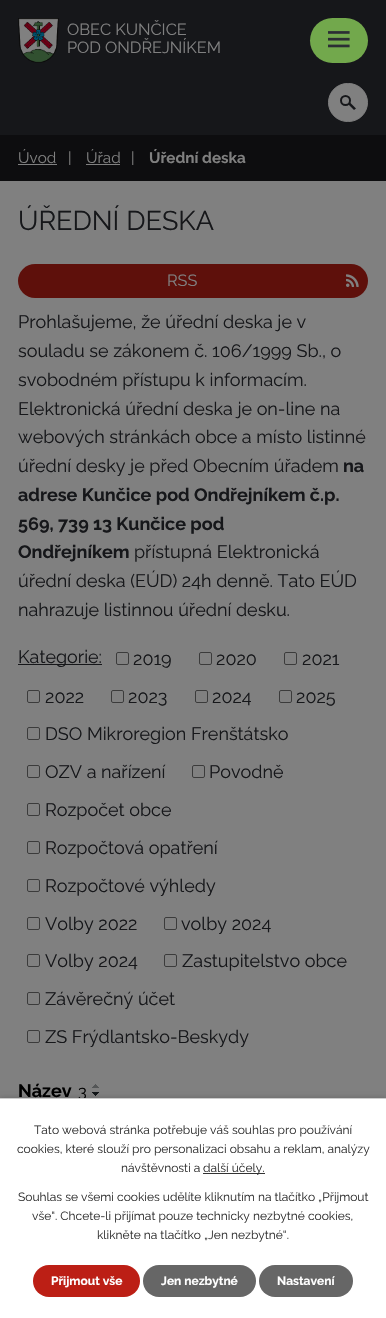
static SkFont makeFont(const char* family, int weight, float size, bool italic = false) {
  SkFontStyle style(weight, SkFontStyle::kNormal_Width,
    italic ? SkFontStyle::kItalic_Slant : SkFontStyle::kUpright_Slant);
  SkFont result(fontMgr->matchFamilyStyle(family, style), size);
  result.setSubpixel(true);
  return result;
}

static void text(SkCanvas* c, const char* s, float x, float y, const SkFont& font, SkColor color) {
  SkPaint ink(SkColor4f::FromColor(color));
  ink.setAntiAlias(true);
  c->drawString(s, x, y, font, ink);
}

static void box(SkCanvas* c, float l, float t, float r, float b, SkColor color) {
  SkPaint ink(SkColor4f::FromColor(color));
  ink.setAntiAlias(true);
  c->drawRect(SkRect::MakeLTRB(l, t, r, b), ink);
}

static void roundBox(SkCanvas* c, float l, float t, float r, float b, float radius, SkColor color) {
  SkPaint ink(SkColor4f::FromColor(color));
  ink.setAntiAlias(true);
  c->drawRoundRect(SkRect::MakeLTRB(l, t, r, b), radius, radius, ink);
}

static void picture(SkCanvas* c, const char* path, float l, float t, float r, float b) {
  auto image = SkImages::DeferredFromEncodedData(SkData::MakeFromFileName(path));
  c->drawImageRect(image, SkRect::MakeLTRB(l, t, r, b), SkSamplingOptions());
}

void draw(SkCanvas* c) {
  SkPaint paint;
  paint.setAntiAlias(true);
  c->clear(0xff808080);
  box(c, 0, 0, 386, 135, 0xff16171a);
  picture(c, "img_01.png", 18, 18, 59, 63);
  SkFont face1 = makeFont("Raleway", 400, 16.25f);
  text(c, "OBEC KUNČICE", 67, 35, face1, 0xff808080);
  text(c, "POD ONDŘEJNÍKEM", 67, 53, face1, 0xff808080);
  paint.setColor(0xff808080);
  c->drawRoundRect(SkRect::MakeLTRB(328.5f, 83.5f, 367.5f, 121.5f), 19, 19, paint);
  paint.setStyle(SkPaint::kStroke_Style);
  paint.setStrokeWidth(1);
  c->drawRoundRect(SkRect::MakeLTRB(328.5f, 83.5f, 367.5f, 121.5f), 19, 19, paint);
  paint.setStrokeWidth(2);
  paint.setColor(0xff16171a);
  c->drawCircle(345.5f, 100.5f, 4.5f, paint);
  paint.setStyle(SkPaint::kFill_Style);
  c->drawPath(SkPathBuilder().moveTo(350, 102.5f).lineTo(356, 108.5f).lineTo(354, 110).lineTo(348.5f, 104.5f).close().detach(), paint);
  roundBox(c, 310, 18, 368, 63, 22.5f, 0xff72a84c);
  picture(c, "img_02.png", 328, 31, 350, 48);
  box(c, 0, 135, 386, 181, 0xff0d0d0f);
  SkFont face2 = makeFont("Raleway", 400, 15.25f);
  text(c, "Úvod", 18, 163, face2, 0xff808080);
  box(c, 18, 164, 57, 165, 0xff808080);
  text(c, "|", 68, 163, face2, 0xff808080);
  text(c, "Úřad", 86, 163, face2, 0xff808080);
  box(c, 86, 164, 120, 165, 0xff808080);
  text(c, "|", 131, 163, face2, 0xff808080);
  SkFont face3 = makeFont("Raleway", 700, 15.25f);
  text(c, "Úřední deska", 149, 163, face3, 0xff808080);
  SkFont face4 = makeFont("Raleway", 400, 27);
  text(c, "ÚŘEDNÍ DESKA", 18, 230, face4, 0xff16171a);
  roundBox(c, 18, 264, 368, 298, 17, 0xff5e100b);
  text(c, "RSS", 167, 286, face1, 0xff808080);
  picture(c, "img_03.png", 346, 274, 359, 287);
  SkFont face5 = makeFont("Raleway", 400, 18);
  text(c, "Prohlašujeme, že úřední deska je v", 18, 328, face5, 0xff16171a);
  text(c, "souladu se zákonem č. 106/1999 Sb., o", 18, 357, face5, 0xff16171a);
  text(c, "svobodném přístupu k informacím.", 18, 386, face5, 0xff16171a);
  text(c, "Elektronická úřední deska je on-line na", 18, 415, face5, 0xff16171a);
  text(c, "webových stránkách obce a místo listinné", 18, 443, face5, 0xff16171a);
  text(c, "úřední desky je před Obecním úřadem", 18, 472, face5, 0xff16171a);
  SkFont face6 = makeFont("Raleway", 700, 18);
  text(c, "na", 343, 472, face6, 0xff16171a);
  text(c, "adrese Kunčice pod Ondřejníkem č.p.", 18, 501, face6, 0xff16171a);
  text(c, "569, 739 13 Kunčice pod", 18, 530, face6, 0xff16171a);
  text(c, "Ondřejníkem", 18, 558, face6, 0xff16171a);
  text(c, "přístupná Elektronická", 134, 558, face5, 0xff16171a);
  text(c, "úřední deska (EÚD) 24h denně. Tato EÚD", 18, 587, face5, 0xff16171a);
  text(c, "nahrazuje listinnou úřední desku.", 18, 616, face5, 0xff16171a);
  box(c, 18, 664, 102, 665, 0xff16171a);
  text(c, "Kategorie:", 18, 663, face5, 0xff16171a);
  paint.setStyle(SkPaint::kStroke_Style);
  paint.setStrokeWidth(1);
  paint.setColor(0xff3b3b3b);
  c->drawRoundRect(SkRect::MakeLTRB(116.5f, 652.5f, 128.5f, 664.5f), 1.5f, 1.5f, paint);
  text(c, "2019", 133, 665, face5, 0xff16171a);
  c->drawRoundRect(SkRect::MakeLTRB(199.5f, 652.5f, 211.5f, 664.5f), 1.5f, 1.5f, paint);
  text(c, "2020", 216, 665, face5, 0xff16171a);
  c->drawRoundRect(SkRect::MakeLTRB(284.5f, 652.5f, 296.5f, 664.5f), 1.5f, 1.5f, paint);
  text(c, "2021", 302, 665, face5, 0xff16171a);
  c->drawRoundRect(SkRect::MakeLTRB(27.5f, 690.5f, 39.5f, 702.5f), 1.5f, 1.5f, paint);
  text(c, "2022", 45, 703, face5, 0xff16171a);
  c->drawRoundRect(SkRect::MakeLTRB(111.5f, 690.5f, 123.5f, 702.5f), 1.5f, 1.5f, paint);
  text(c, "2023", 128, 703, face5, 0xff16171a);
  c->drawRoundRect(SkRect::MakeLTRB(195.5f, 690.5f, 207.5f, 702.5f), 1.5f, 1.5f, paint);
  text(c, "2024", 212, 703, face5, 0xff16171a);
  c->drawRoundRect(SkRect::MakeLTRB(279.5f, 690.5f, 291.5f, 702.5f), 1.5f, 1.5f, paint);
  text(c, "2025", 296, 703, face5, 0xff16171a);
  c->drawRoundRect(SkRect::MakeLTRB(27.5f, 727.5f, 39.5f, 739.5f), 1.5f, 1.5f, paint);
  text(c, "DSO Mikroregion Frenštátsko", 45, 740, face5, 0xff16171a);
  c->drawRoundRect(SkRect::MakeLTRB(27.5f, 765.5f, 39.5f, 777.5f), 1.5f, 1.5f, paint);
  text(c, "OZV a nařízení", 45, 778, face5, 0xff16171a);
  c->drawRoundRect(SkRect::MakeLTRB(192.5f, 765.5f, 204.5f, 777.5f), 1.5f, 1.5f, paint);
  text(c, "Povodně", 209, 778, face5, 0xff16171a);
  c->drawRoundRect(SkRect::MakeLTRB(27.5f, 803.5f, 39.5f, 815.5f), 1.5f, 1.5f, paint);
  text(c, "Rozpočet obce", 45, 816, face5, 0xff16171a);
  c->drawRoundRect(SkRect::MakeLTRB(27.5f, 841.5f, 39.5f, 853.5f), 1.5f, 1.5f, paint);
  text(c, "Rozpočtová opatření", 45, 854, face5, 0xff16171a);
  c->drawRoundRect(SkRect::MakeLTRB(27.5f, 879.5f, 39.5f, 891.5f), 1.5f, 1.5f, paint);
  text(c, "Rozpočtové výhledy", 45, 892, face5, 0xff16171a);
  c->drawRoundRect(SkRect::MakeLTRB(27.5f, 917.5f, 39.5f, 929.5f), 1.5f, 1.5f, paint);
  text(c, "Volby 2022", 45, 930, face5, 0xff16171a);
  c->drawRoundRect(SkRect::MakeLTRB(164.5f, 917.5f, 176.5f, 929.5f), 1.5f, 1.5f, paint);
  text(c, "volby 2024", 181, 930, face5, 0xff16171a);
  c->drawRoundRect(SkRect::MakeLTRB(27.5f, 954.5f, 39.5f, 966.5f), 1.5f, 1.5f, paint);
  text(c, "Volby 2024", 45, 967, face5, 0xff16171a);
  c->drawRoundRect(SkRect::MakeLTRB(164.5f, 954.5f, 176.5f, 966.5f), 1.5f, 1.5f, paint);
  text(c, "Zastupitelstvo obce", 182, 967, face5, 0xff16171a);
  c->drawRoundRect(SkRect::MakeLTRB(27.5f, 992.5f, 39.5f, 1004.5f), 1.5f, 1.5f, paint);
  text(c, "Závěrečný účet", 45, 1005, face5, 0xff16171a);
  c->drawRoundRect(SkRect::MakeLTRB(27.5f, 1030.5f, 39.5f, 1042.5f), 1.5f, 1.5f, paint);
  text(c, "ZS Frýdlantsko-Beskydy", 45, 1043, face5, 0xff16171a);
  text(c, "Název", 18, 1097, face6, 0xff000000);
  text(c, "3", 78, 1097, face1, 0xff000000);
  picture(c, "img_04.png", 92, 1084, 99, 1088);
  picture(c, "img_05.png", 92, 1092, 99, 1096);
  paint.setStyle(SkPaint::kFill_Style);
  paint.setColor(0x33000000);
  paint.setMaskFilter(SkMaskFilter::MakeBlur(kNormal_SkBlurStyle, 2.5f));
  c->drawRect(SkRect::MakeLTRB(0, 1098, 386, 1318), paint);
  paint.setMaskFilter(nullptr);
  box(c, 0, 1099, 386, 1318, 0xffffffff);
  box(c, 0, 1098, 386, 1099, 0xffcccccc);
  SkFont face7 = makeFont("Raleway", 400, 12);
  text(c, "Tato webová stránka potřebuje váš souhlas pro používání", 34, 1134, face7, 0xff333333);
  text(c, "cookies, které slouží pro personalizaci obsahu a reklam, analýzy", 17, 1153, face7, 0xff333333);
  text(c, "návštěvnosti a", 121, 1172, face7, 0xff333333);
  box(c, 203, 1173, 265, 1174, 0xff333333);
  text(c, "další účely.", 203, 1172, face7, 0xff333333);
  text(c, "Souhlas se všemi cookies udělíte kliknutím na tlačítko „Přijmout", 18, 1201, face7, 0xff333333);
  text(c, "vše“. Chcete-li přijímat pouze technicky nezbytné cookies,", 32, 1220, face7, 0xff333333);
  text(c, "klikněte na tlačítko „Jen nezbytné“.", 97, 1239, face7, 0xff333333);
  roundBox(c, 33, 1265, 140, 1297, 16, 0xffbc1f15);
  SkFont face8 = makeFont("Raleway", 700, 12);
  text(c, "Přijmout vše", 51, 1285, face8, 0xffffffff);
  roundBox(c, 143, 1265, 256, 1297, 16, 0xff666666);
  text(c, "Jen nezbytné", 161, 1285, face8, 0xffffffff);
  roundBox(c, 259, 1265, 353, 1297, 16, 0xff666666);
  text(c, "Nastavení", 277, 1285, face8, 0xffffffff);
}
